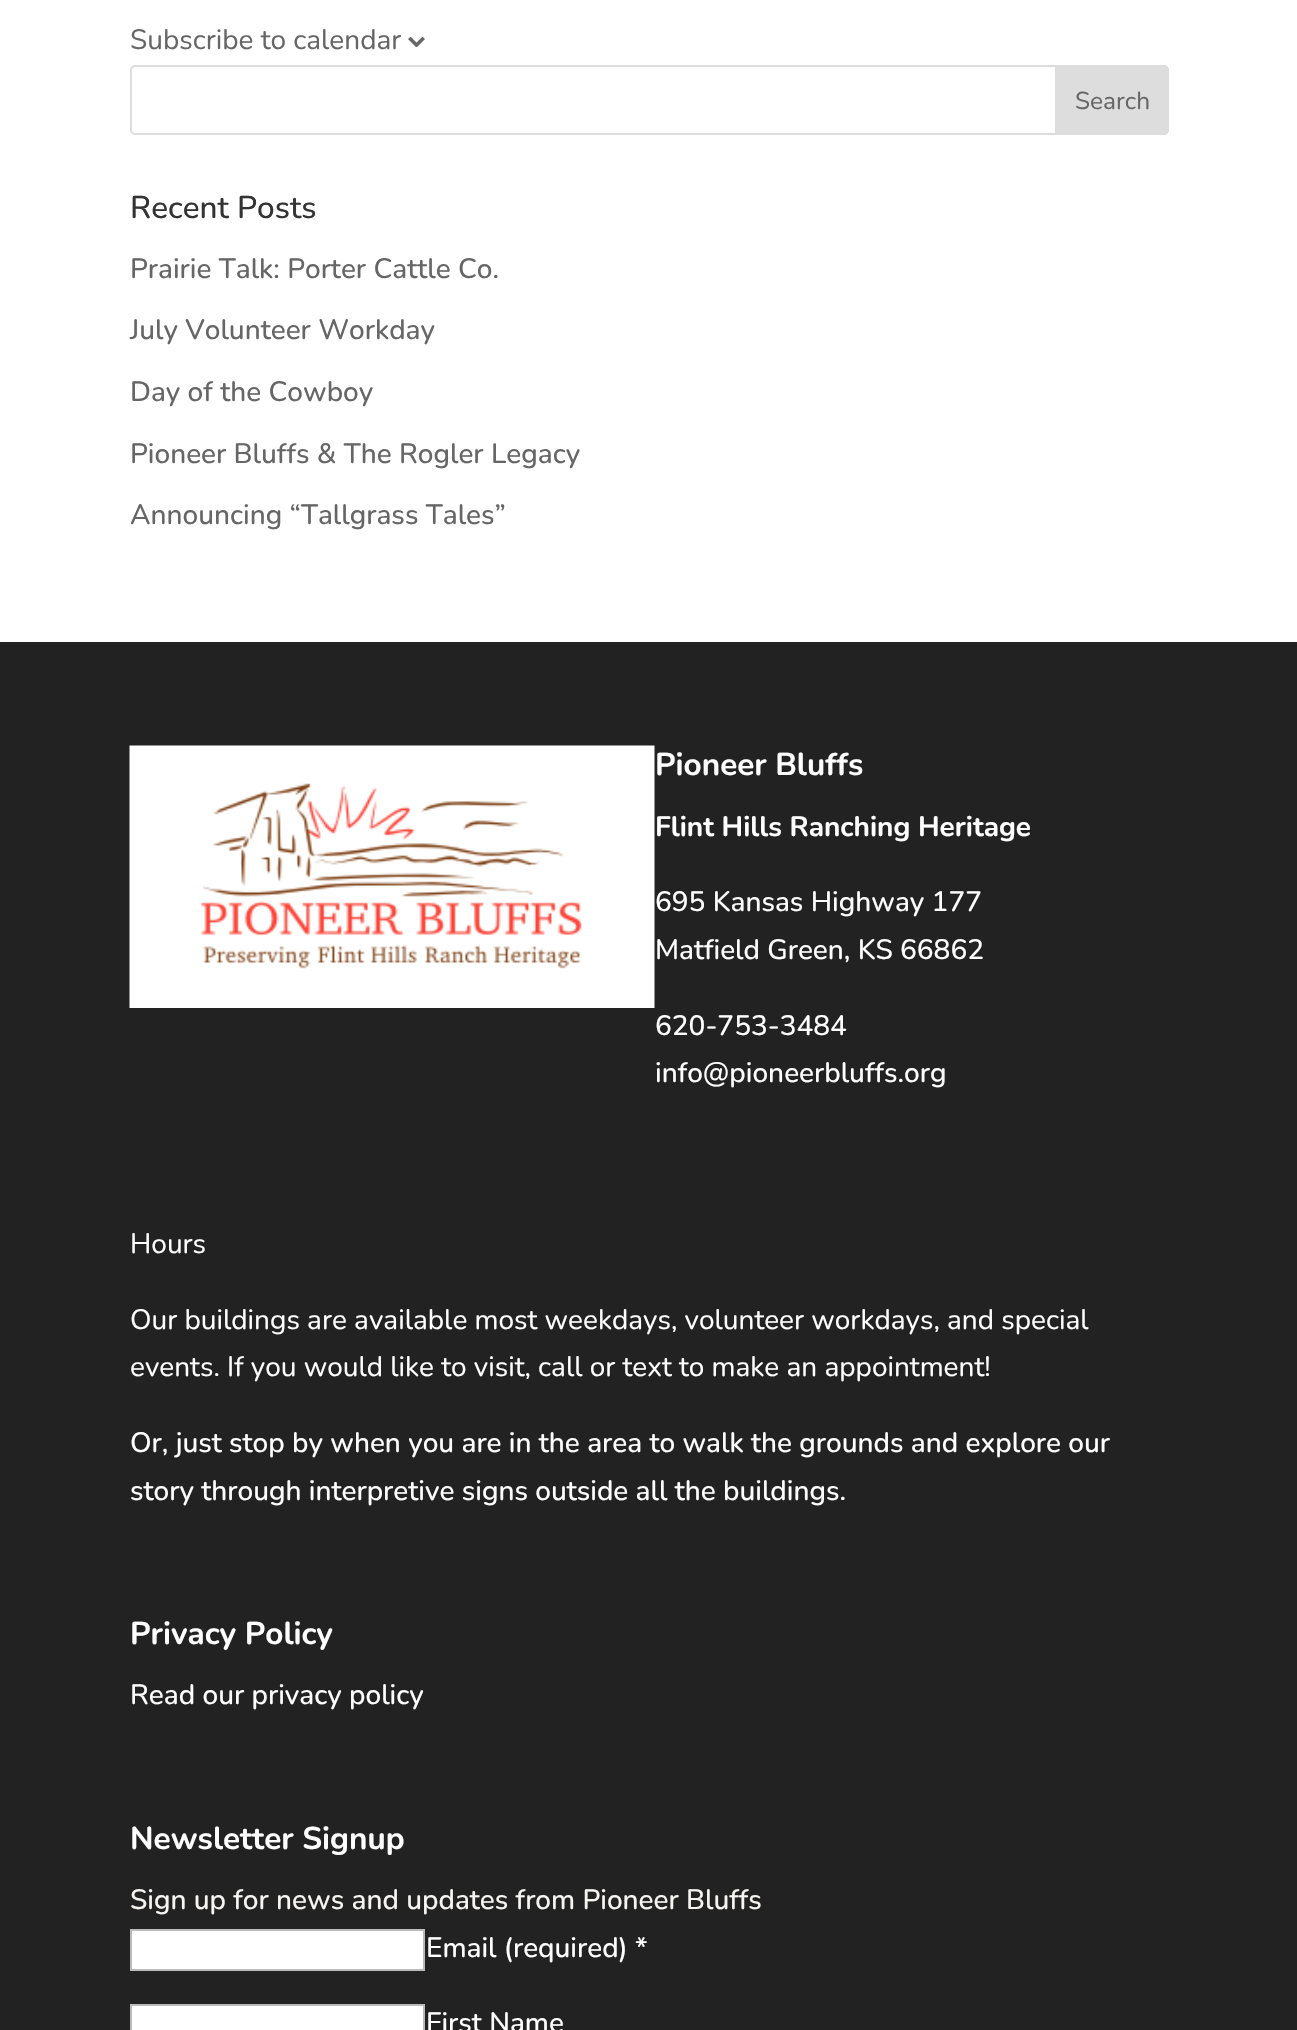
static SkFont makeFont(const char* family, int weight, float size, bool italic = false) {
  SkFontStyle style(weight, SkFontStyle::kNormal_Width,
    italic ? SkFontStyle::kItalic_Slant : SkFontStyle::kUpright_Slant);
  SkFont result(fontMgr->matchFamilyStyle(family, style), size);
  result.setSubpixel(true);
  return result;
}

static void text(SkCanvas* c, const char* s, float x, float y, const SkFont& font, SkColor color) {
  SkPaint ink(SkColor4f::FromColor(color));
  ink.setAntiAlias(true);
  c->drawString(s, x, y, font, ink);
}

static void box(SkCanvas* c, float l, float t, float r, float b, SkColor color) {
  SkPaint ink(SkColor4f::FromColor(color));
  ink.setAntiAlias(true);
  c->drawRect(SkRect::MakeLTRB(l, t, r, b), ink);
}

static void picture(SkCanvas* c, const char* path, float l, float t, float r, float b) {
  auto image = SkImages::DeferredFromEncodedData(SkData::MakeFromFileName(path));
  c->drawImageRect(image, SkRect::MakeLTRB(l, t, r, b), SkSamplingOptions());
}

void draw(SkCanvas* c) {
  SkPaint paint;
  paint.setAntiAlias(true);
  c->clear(0xffffffff);
  SkFont face1 = makeFont("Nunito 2", 200, 28);
  text(c, "Subscribe to calendar", 130, 49, face1, 0xff666666);
  picture(c, "img_01.png", 408, 37, 425, 47);
  paint.setStyle(SkPaint::kStroke_Style);
  paint.setStrokeWidth(2);
  paint.setColor(0xffdddddd);
  c->drawRoundRect(SkRect::MakeLTRB(131, 66, 1168, 134), 4, 4, paint);
  paint.setStyle(SkPaint::kFill_Style);
  c->drawPath(SkPathBuilder().moveTo(1056, 66).lineTo(1164, 66).cubicTo(1166, 66, 1168, 68, 1168, 70).lineTo(1168, 130).cubicTo(1168, 132, 1166, 134, 1164, 134).lineTo(1056, 134).close().detach(), paint);
  paint.setStyle(SkPaint::kStroke_Style);
  c->drawPath(SkPathBuilder().moveTo(1056, 66).lineTo(1164, 66).cubicTo(1166, 66, 1168, 68, 1168, 70).lineTo(1168, 130).cubicTo(1168, 132, 1166, 134, 1164, 134).lineTo(1056, 134).close().detach(), paint);
  SkFont face2 = makeFont("Nunito 2", 200, 24.5f);
  text(c, "Search", 1075, 109, face2, 0xff666666);
  SkFont face3 = makeFont("Nunito", 200, 31.5f);
  text(c, "Recent Posts", 130, 218, face3, 0xff333333);
  SkFont face4 = makeFont("Nunito", 200, 28);
  text(c, "Prairie Talk: Porter Cattle Co.", 130, 278, face4, 0xff666666);
  text(c, "July Volunteer Workday", 130, 339, face4, 0xff666666);
  text(c, "Day of the Cowboy", 130, 401, face4, 0xff666666);
  text(c, "Pioneer Bluffs & The Rogler Legacy", 130, 463, face4, 0xff666666);
  text(c, "Announcing “Tallgrass Tales”", 130, 524, face4, 0xff666666);
  box(c, 0, 642, 1297, 2030, 0xff222222);
  picture(c, "img_02.png", 129, 745, 655, 1008);
  SkFont face5 = makeFont("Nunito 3", 200, 31.5f);
  text(c, "Pioneer Bluffs", 655, 775, face5, 0xffffffff);
  SkFont face6 = makeFont("Nunito 3", 200, 28);
  text(c, "Flint Hills Ranching Heritage", 655, 836, face6, 0xffffffff);
  text(c, "695 Kansas Highway 177", 655, 911, face4, 0xffffffff);
  text(c, "Matfield Green, KS 66862", 655, 959, face4, 0xffffffff);
  text(c, "620-753-3484", 655, 1035, face4, 0xffffffff);
  text(c, "info@pioneerbluffs.org", 655, 1082, face4, 0xffffffff);
  text(c, "Hours", 130, 1253, face1, 0xffffffff);
  text(c, "Our buildings are available most weekdays, volunteer workdays, and special", 130, 1329, face1, 0xffffffff);
  text(c, "events. If you would like to visit, call or text to make an appointment!", 130, 1376, face1, 0xffffffff);
  text(c, "Or, just stop by when you are in the area to walk the grounds and explore our", 130, 1452, face4, 0xffffffff);
  text(c, "story through interpretive signs outside all the buildings.", 130, 1500, face4, 0xffffffff);
  text(c, "Privacy Policy", 130, 1644, face5, 0xffffffff);
  text(c, "Read our privacy policy", 130, 1704, face4, 0xffffffff);
  text(c, "Newsletter Signup", 130, 1849, face5, 0xffffffff);
  text(c, "Sign up for news and updates from Pioneer Bluffs", 130, 1909, face4, 0xfff7f5f2);
  paint.setStyle(SkPaint::kFill_Style);
  paint.setColor(0xffffffff);
  c->drawRect(SkRect::MakeLTRB(131, 1930, 424, 1970), paint);
  paint.setStyle(SkPaint::kStroke_Style);
  paint.setColor(0xffbbbbbb);
  c->drawRect(SkRect::MakeLTRB(131, 1930, 424, 1970), paint);
  text(c, "Email (required) *", 426, 1957, face4, 0xffffffff);
  paint.setStyle(SkPaint::kFill_Style);
  paint.setColor(0xffffffff);
  c->drawRect(SkRect::MakeLTRB(131, 2005, 424, 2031), paint);
  paint.setStyle(SkPaint::kStroke_Style);
  paint.setColor(0xffbbbbbb);
  c->drawRect(SkRect::MakeLTRB(131, 2005, 424, 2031), paint);
  text(c, "First Name", 426, 2032, face4, 0xffffffff);
}
